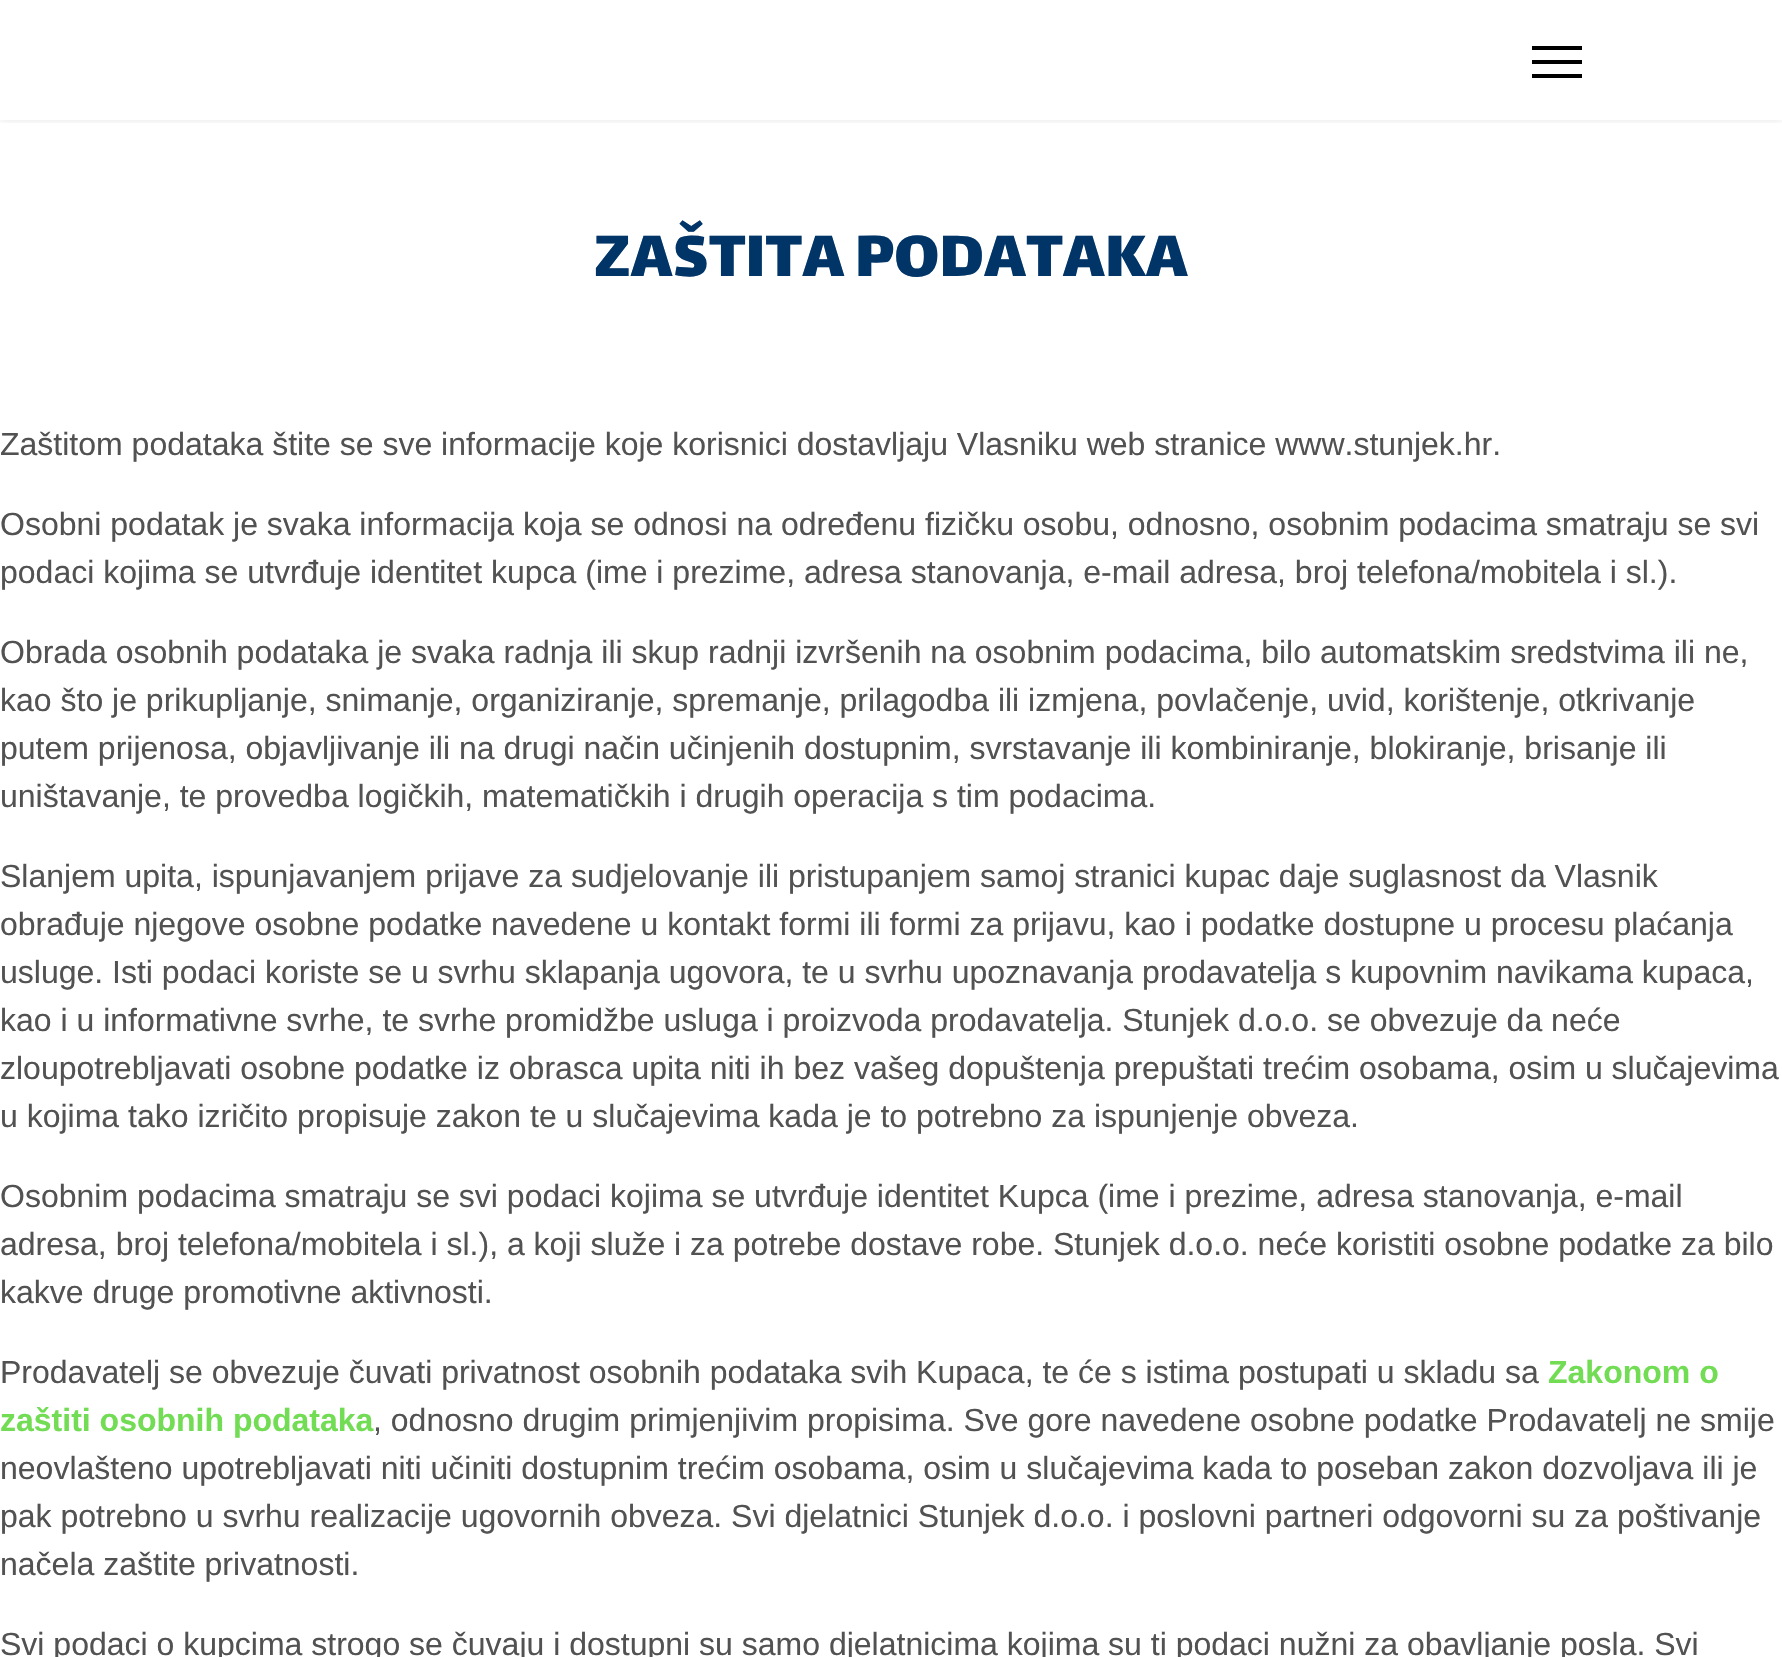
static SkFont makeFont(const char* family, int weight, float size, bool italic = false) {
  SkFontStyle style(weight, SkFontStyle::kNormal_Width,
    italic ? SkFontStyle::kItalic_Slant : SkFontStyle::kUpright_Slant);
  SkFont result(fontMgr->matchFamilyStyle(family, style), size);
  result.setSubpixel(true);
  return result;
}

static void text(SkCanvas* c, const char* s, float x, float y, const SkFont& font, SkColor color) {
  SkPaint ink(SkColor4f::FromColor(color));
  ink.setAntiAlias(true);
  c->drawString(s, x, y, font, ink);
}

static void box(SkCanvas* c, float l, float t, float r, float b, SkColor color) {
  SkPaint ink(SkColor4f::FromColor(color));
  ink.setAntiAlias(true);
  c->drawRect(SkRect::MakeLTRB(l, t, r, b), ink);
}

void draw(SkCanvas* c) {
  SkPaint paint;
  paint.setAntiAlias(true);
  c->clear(0xffffffff);
  c->save();
  c->clipRect(SkRect::MakeLTRB(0, 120, 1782, 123));
  paint.setColor(0x1a000000);
  paint.setMaskFilter(SkMaskFilter::MakeBlur(kNormal_SkBlurStyle, 4));
  c->drawRect(SkRect::MakeLTRB(0, 0, 1782, 120), paint);
  paint.setMaskFilter(nullptr);
  c->restore();
  box(c, 1532, 46, 1582, 50, 0xff000000);
  box(c, 1532, 60, 1582, 64, 0xff000000);
  box(c, 1532, 74, 1582, 78, 0xff000000);
  SkFont face1 = makeFont("Lalezar", 400, 70.75f);
  text(c, "ZAŠTITA PODATAKA", 594, 276, face1, 0xff013567);
  SkFont face2 = makeFont("Liberation Sans", 400, 32);
  text(c, "Zaštitom podataka štite se sve informacije koje korisnici dostavljaju Vlasniku web stranice www.stunjek.hr.", 0, 455, face2, 0xff525252);
  text(c, "Osobni podatak je svaka informacija koja se odnosi na određenu fizičku osobu, odnosno, osobnim podacima smatraju se svi", 0, 535, face2, 0xff525252);
  text(c, "podaci kojima se utvrđuje identitet kupca (ime i prezime, adresa stanovanja, e-mail adresa, broj telefona/mobitela i sl.).", 0, 583, face2, 0xff525252);
  text(c, "Obrada osobnih podataka je svaka radnja ili skup radnji izvršenih na osobnim podacima, bilo automatskim sredstvima ili ne,", 0, 663, face2, 0xff525252);
  text(c, "kao što je prikupljanje, snimanje, organiziranje, spremanje, prilagodba ili izmjena, povlačenje, uvid, korištenje, otkrivanje", 0, 711, face2, 0xff525252);
  text(c, "putem prijenosa, objavljivanje ili na drugi način učinjenih dostupnim, svrstavanje ili kombiniranje, blokiranje, brisanje ili", 0, 759, face2, 0xff525252);
  text(c, "uništavanje, te provedba logičkih, matematičkih i drugih operacija s tim podacima.", 0, 807, face2, 0xff525252);
  text(c, "Slanjem upita, ispunjavanjem prijave za sudjelovanje ili pristupanjem samoj stranici kupac daje suglasnost da Vlasnik", 0, 887, face2, 0xff525252);
  text(c, "obrađuje njegove osobne podatke navedene u kontakt formi ili formi za prijavu, kao i podatke dostupne u procesu plaćanja", 0, 935, face2, 0xff525252);
  text(c, "usluge. Isti podaci koriste se u svrhu sklapanja ugovora, te u svrhu upoznavanja prodavatelja s kupovnim navikama kupaca,", 0, 983, face2, 0xff525252);
  text(c, "kao i u informativne svrhe, te svrhe promidžbe usluga i proizvoda prodavatelja. Stunjek d.o.o. se obvezuje da neće", 0, 1031, face2, 0xff525252);
  text(c, "zloupotrebljavati osobne podatke iz obrasca upita niti ih bez vašeg dopuštenja prepuštati trećim osobama, osim u slučajevima", 0, 1079, face2, 0xff525252);
  text(c, "u kojima tako izričito propisuje zakon te u slučajevima kada je to potrebno za ispunjenje obveza.", 0, 1127, face2, 0xff525252);
  text(c, "Osobnim podacima smatraju se svi podaci kojima se utvrđuje identitet Kupca (ime i prezime, adresa stanovanja, e-mail", 0, 1207, face2, 0xff525252);
  text(c, "adresa, broj telefona/mobitela i sl.), a koji služe i za potrebe dostave robe. Stunjek d.o.o. neće koristiti osobne podatke za bilo", 0, 1255, face2, 0xff525252);
  text(c, "kakve druge promotivne aktivnosti.", 0, 1303, face2, 0xff525252);
  text(c, "Prodavatelj se obvezuje čuvati privatnost osobnih podataka svih Kupaca, te će s istima postupati u skladu sa", 0, 1383, face2, 0xff525252);
  SkFont face3 = makeFont("Liberation Sans", 700, 32);
  text(c, "Zakonom o", 1548, 1383, face3, 0xff72dc54);
  text(c, "zaštiti osobnih podataka", 0, 1431, face3, 0xff72dc54);
  text(c, ", odnosno drugim primjenjivim propisima. Sve gore navedene osobne podatke Prodavatelj ne smije", 373, 1431, face2, 0xff525252);
  text(c, "neovlašteno upotrebljavati niti učiniti dostupnim trećim osobama, osim u slučajevima kada to poseban zakon dozvoljava ili je", 0, 1479, face2, 0xff525252);
  text(c, "pak potrebno u svrhu realizacije ugovornih obveza. Svi djelatnici Stunjek d.o.o. i poslovni partneri odgovorni su za poštivanje", 0, 1527, face2, 0xff525252);
  text(c, "načela zaštite privatnosti.", 0, 1575, face2, 0xff525252);
  text(c, "Svi podaci o kupcima strogo se čuvaju i dostupni su samo djelatnicima kojima su ti podaci nužni za obavljanje posla. Svi", 0, 1655, face2, 0xff525252);
}
